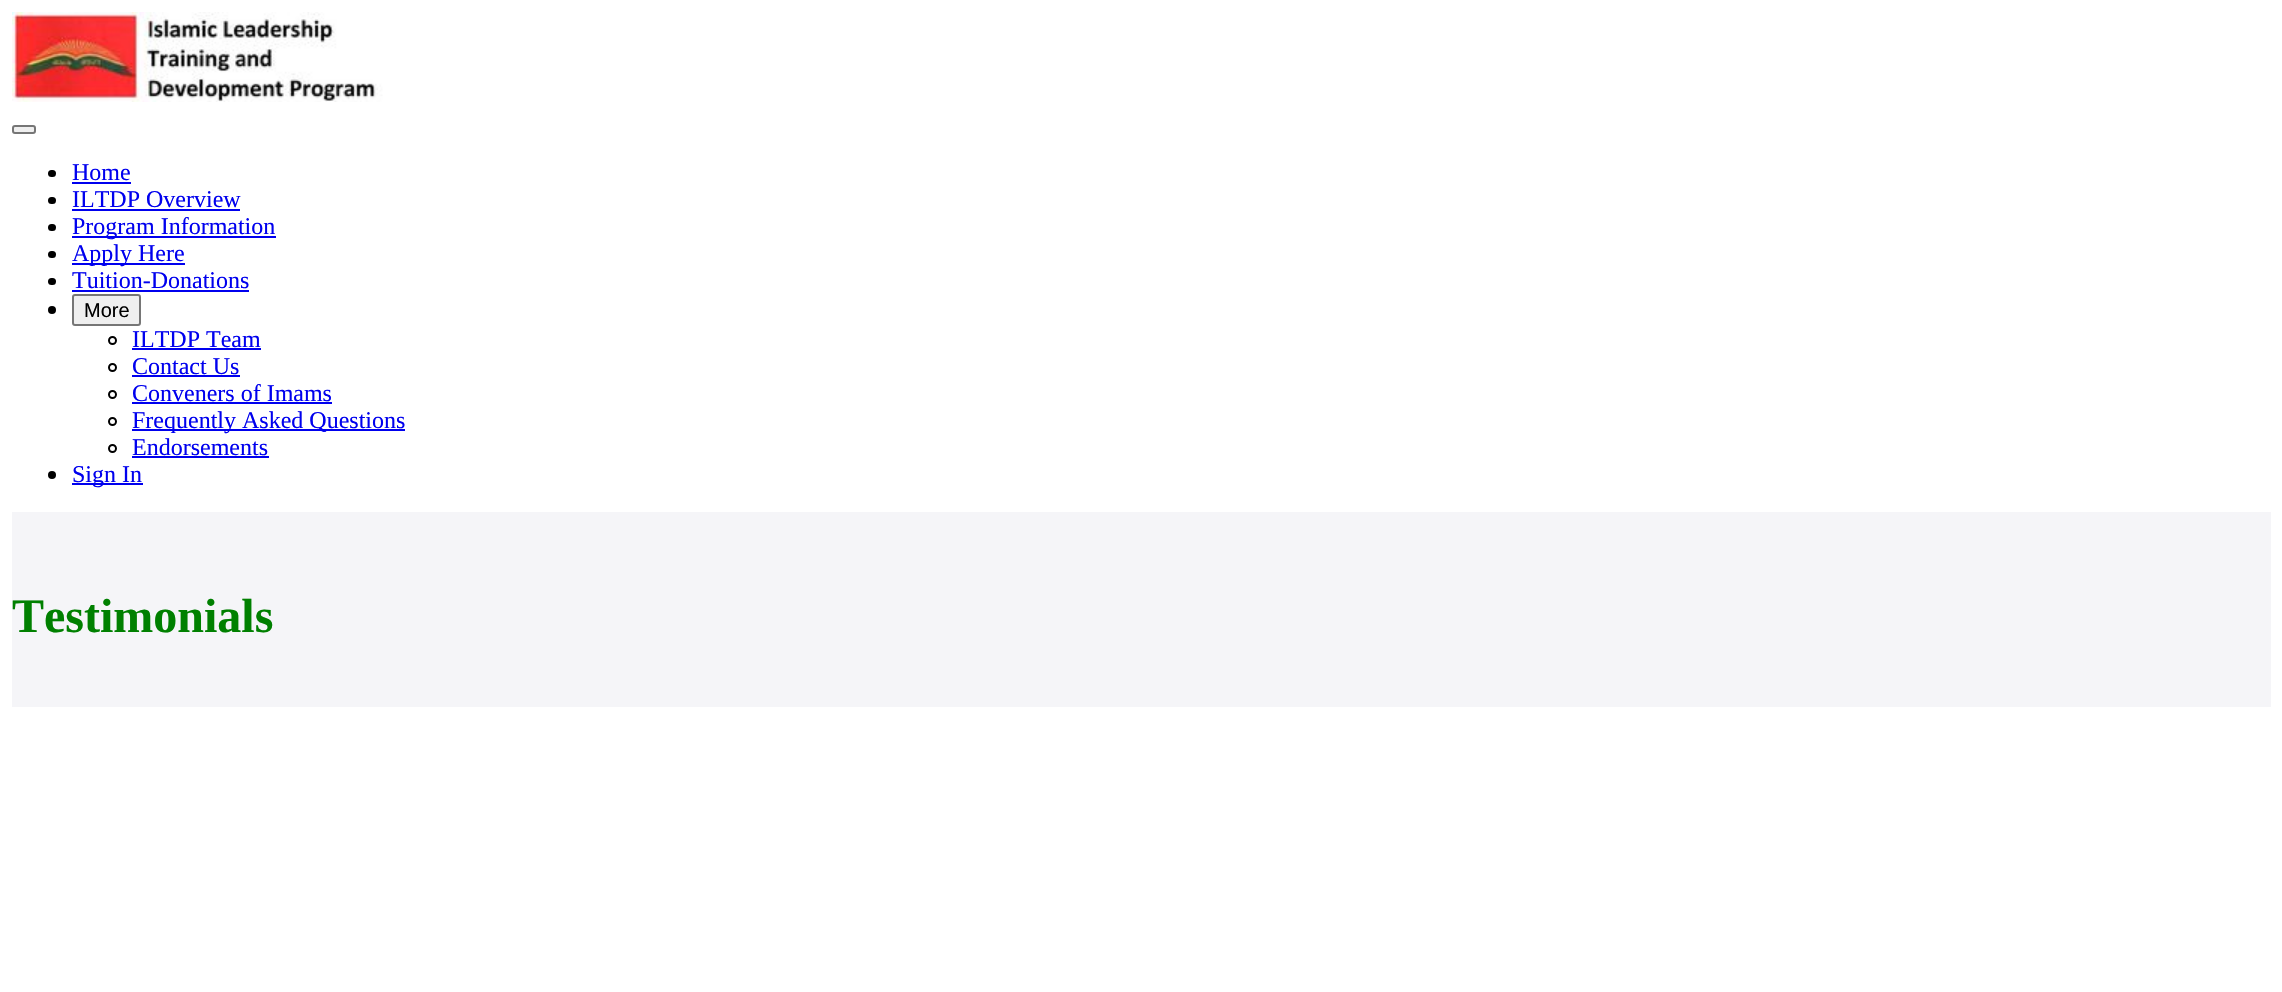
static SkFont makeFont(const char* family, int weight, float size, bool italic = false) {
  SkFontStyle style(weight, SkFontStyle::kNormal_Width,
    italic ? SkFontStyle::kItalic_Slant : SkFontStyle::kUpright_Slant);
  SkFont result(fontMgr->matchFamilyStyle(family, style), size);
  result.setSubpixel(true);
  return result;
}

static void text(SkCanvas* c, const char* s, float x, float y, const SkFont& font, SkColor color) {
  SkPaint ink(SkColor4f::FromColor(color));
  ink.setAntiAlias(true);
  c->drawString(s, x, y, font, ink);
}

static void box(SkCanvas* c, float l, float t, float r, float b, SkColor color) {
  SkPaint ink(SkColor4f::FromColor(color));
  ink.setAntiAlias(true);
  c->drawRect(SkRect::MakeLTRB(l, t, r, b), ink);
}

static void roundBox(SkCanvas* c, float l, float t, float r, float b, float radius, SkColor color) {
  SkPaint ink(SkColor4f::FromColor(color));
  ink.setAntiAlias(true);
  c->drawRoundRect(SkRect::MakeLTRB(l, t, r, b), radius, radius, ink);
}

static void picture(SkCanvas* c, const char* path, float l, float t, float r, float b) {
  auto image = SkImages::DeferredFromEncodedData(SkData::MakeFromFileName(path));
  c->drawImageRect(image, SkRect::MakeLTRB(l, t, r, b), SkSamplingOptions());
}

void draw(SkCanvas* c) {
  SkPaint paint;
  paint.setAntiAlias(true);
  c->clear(0xffffffff);
  picture(c, "img_01.png", 12, 12, 383, 102);
  paint.setColor(0xffefefef);
  c->drawRoundRect(SkRect::MakeLTRB(13, 126, 35, 133), 2, 2, paint);
  paint.setStyle(SkPaint::kStroke_Style);
  paint.setStrokeWidth(2);
  paint.setColor(0xff767676);
  c->drawRoundRect(SkRect::MakeLTRB(13, 126, 35, 133), 2, 2, paint);
  roundBox(c, 48, 170, 56, 177, 3.5f, 0xff000000);
  SkFont face1 = makeFont("Liberation Serif", 400, 24);
  text(c, "Home", 72, 180, face1, 0xff0000ee);
  box(c, 72, 182, 131, 184, 0xff0000ee);
  roundBox(c, 48, 197, 56, 204, 3.5f, 0xff000000);
  text(c, "ILTDP Overview", 72, 207, face1, 0xff0000ee);
  box(c, 72, 209, 240, 211, 0xff0000ee);
  roundBox(c, 48, 224, 56, 231, 3.5f, 0xff000000);
  box(c, 72, 236, 276, 238, 0xff0000ee);
  text(c, "Program Information", 72, 234, face1, 0xff0000ee);
  roundBox(c, 48, 251, 56, 258, 3.5f, 0xff000000);
  box(c, 72, 263, 185, 265, 0xff0000ee);
  text(c, "Apply Here", 72, 261, face1, 0xff0000ee);
  roundBox(c, 48, 278, 56, 285, 3.5f, 0xff000000);
  text(c, "Tuition-Donations", 72, 288, face1, 0xff0000ee);
  box(c, 72, 290, 249, 292, 0xff0000ee);
  paint.setStyle(SkPaint::kFill_Style);
  paint.setColor(0xff000000);
  c->drawCircle(52, 310, 4, paint);
  paint.setColor(0xffefefef);
  c->drawRoundRect(SkRect::MakeLTRB(73, 295, 140, 325), 2, 2, paint);
  paint.setStyle(SkPaint::kStroke_Style);
  paint.setColor(0xff767676);
  c->drawRoundRect(SkRect::MakeLTRB(73, 295, 140, 325), 2, 2, paint);
  SkFont face2 = makeFont("Liberation Sans", 400, 20);
  text(c, "More", 84, 317, face2, 0xff000000);
  paint.setColor(0xff000000);
  c->drawCircle(112.5f, 340.5f, 3.5f, paint);
  text(c, "ILTDP Team", 132, 347, face1, 0xff0000ee);
  box(c, 132, 348, 261, 350, 0xff0000ee);
  c->drawCircle(112.5f, 367.5f, 3.5f, paint);
  text(c, "Contact Us", 132, 374, face1, 0xff0000ee);
  box(c, 132, 375, 240, 377, 0xff0000ee);
  c->drawCircle(112.5f, 394.5f, 3.5f, paint);
  text(c, "Conveners of Imams", 132, 401, face1, 0xff0000ee);
  box(c, 132, 402, 332, 404, 0xff0000ee);
  c->drawCircle(112.5f, 421.5f, 3.5f, paint);
  box(c, 132, 429, 405, 431, 0xff0000ee);
  text(c, "Frequently Asked Questions", 132, 428, face1, 0xff0000ee);
  c->drawCircle(112.5f, 448.5f, 3.5f, paint);
  text(c, "Endorsements", 132, 455, face1, 0xff0000ee);
  box(c, 132, 456, 269, 458, 0xff0000ee);
  paint.setStyle(SkPaint::kFill_Style);
  c->drawCircle(52, 475, 4, paint);
  box(c, 72, 483, 143, 485, 0xff0000ee);
  text(c, "Sign In", 72, 482, face1, 0xff0000ee);
  box(c, 12, 512, 2271, 707, 0xfff5f5f8);
  SkFont face3 = makeFont("Liberation Serif", 700, 48);
  text(c, "Testimonials", 12, 632, face3, 0xff008000);
}
